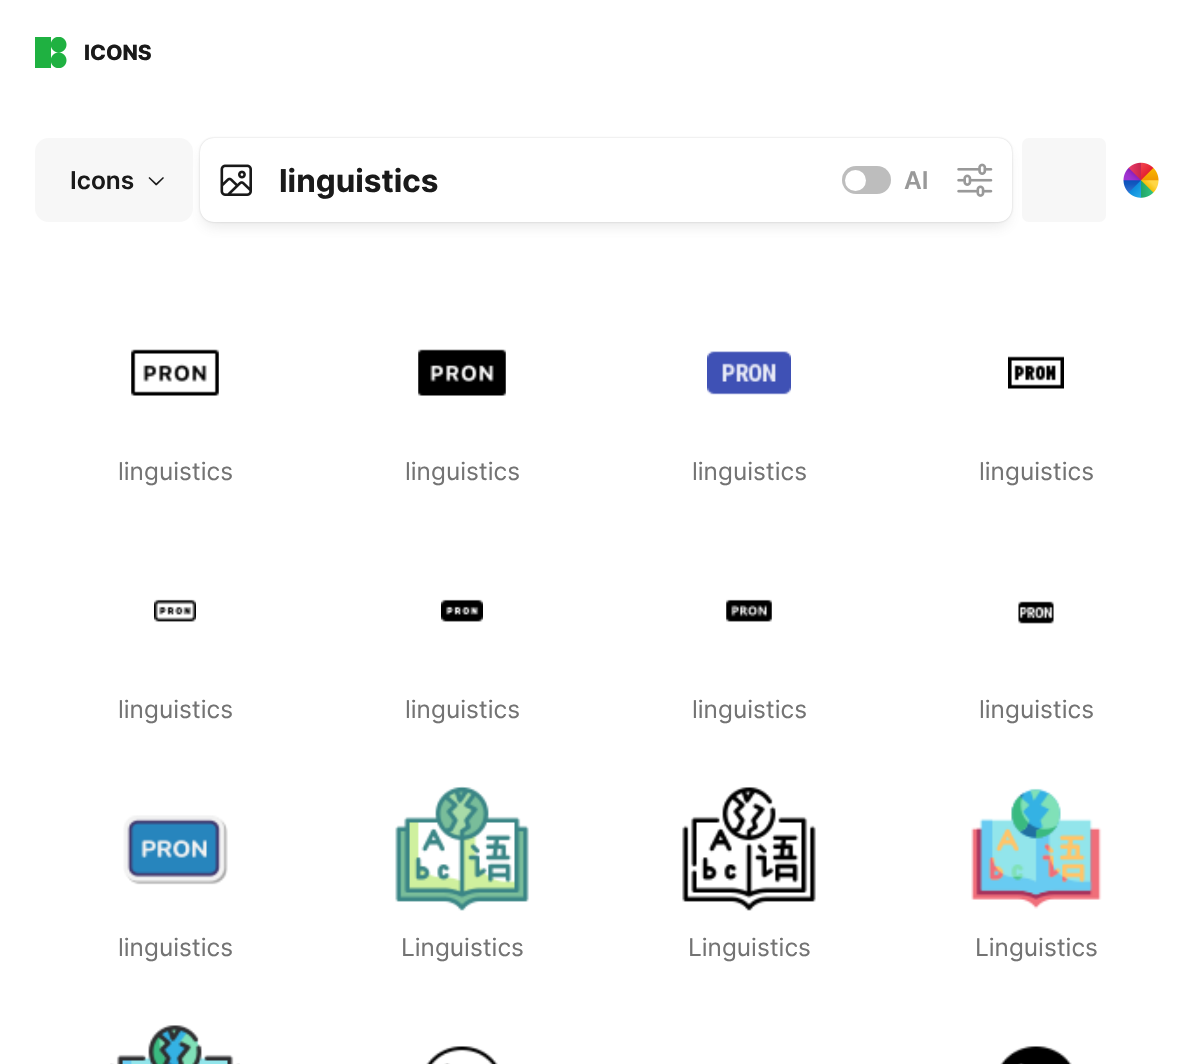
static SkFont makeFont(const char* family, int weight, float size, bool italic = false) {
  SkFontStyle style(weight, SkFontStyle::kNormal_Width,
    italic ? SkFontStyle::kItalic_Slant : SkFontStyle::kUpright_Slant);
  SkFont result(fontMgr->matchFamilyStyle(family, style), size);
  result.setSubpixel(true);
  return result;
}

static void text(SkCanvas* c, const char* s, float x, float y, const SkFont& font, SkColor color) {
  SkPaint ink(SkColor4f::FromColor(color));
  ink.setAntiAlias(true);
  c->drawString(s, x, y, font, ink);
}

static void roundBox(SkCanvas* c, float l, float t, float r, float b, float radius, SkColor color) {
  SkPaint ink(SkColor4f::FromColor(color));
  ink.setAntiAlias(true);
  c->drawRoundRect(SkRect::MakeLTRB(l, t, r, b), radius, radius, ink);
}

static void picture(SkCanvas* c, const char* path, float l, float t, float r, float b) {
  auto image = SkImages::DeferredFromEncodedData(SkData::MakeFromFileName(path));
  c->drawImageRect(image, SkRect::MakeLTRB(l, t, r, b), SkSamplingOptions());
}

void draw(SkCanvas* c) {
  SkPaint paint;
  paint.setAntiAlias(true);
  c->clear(0xffffffff);
  picture(c, "img_01.png", 35, 37, 67, 68);
  SkFont face1 = makeFont("Inter", 800, 21);
  text(c, "ICONS", 84, 60, face1, 0xff1a1a1a);
  roundBox(c, 1022, 138, 1106, 222, 7, 0xfff7f7f7);
  paint.setColor(0x26606060);
  paint.setMaskFilter(SkMaskFilter::MakeBlur(kNormal_SkBlurStyle, 7));
  c->drawRoundRect(SkRect::MakeLTRB(203, 149, 1008, 226), 11, 11, paint);
  paint.setMaskFilter(nullptr);
  roundBox(c, 35, 138, 193, 222, 14, 0xfff7f7f7);
  SkFont face2 = makeFont("Inter", 600, 24.5f);
  text(c, "Icons", 70, 189, face2, 0xff1a1a1a);
  paint.setColor(0xff1a1a1a);
  c->drawPath(SkPathBuilder().moveTo(149.5f, 177).lineTo(157, 184).lineTo(156, 185.5f).lineTo(148.5f, 178).close().detach(), paint);
  c->drawPath(SkPathBuilder().moveTo(155.5f, 184).lineTo(163, 177).lineTo(164, 178).lineTo(156.5f, 185.5f).close().detach(), paint);
  paint.setColor(0x4f606060);
  paint.setMaskFilter(SkMaskFilter::MakeBlur(kNormal_SkBlurStyle, 1));
  c->drawRoundRect(SkRect::MakeLTRB(200, 138, 1012, 222), 14, 14, paint);
  paint.setMaskFilter(nullptr);
  roundBox(c, 200, 138, 1012, 222, 14, 0xffffffff);
  picture(c, "img_02.png", 220, 164, 252, 196);
  SkFont face3 = makeFont("Inter", 700, 31.5f);
  text(c, "linguistics", 279, 192, face3, 0xff1a1a1a);
  roundBox(c, 842, 166, 891, 194, 14, 0xffbdbdbd);
  paint.setColor(0xffffffff);
  c->drawCircle(855.5f, 180.5f, 10.5f, paint);
  text(c, "AI", 904, 189, face2, 0xff999999);
  picture(c, "img_03.png", 957, 163, 993, 197);
  picture(c, "img_04.png", 1123, 162, 1159, 198);
  picture(c, "img_05.png", 131, 349, 219, 396);
  SkFont face4 = makeFont("Inter", 400, 24.5f);
  text(c, "linguistics", 118, 480, face4, 0xff737373);
  picture(c, "img_06.png", 418, 349, 506, 396);
  text(c, "linguistics", 405, 480, face4, 0xff737373);
  picture(c, "img_07.png", 707, 351, 791, 395);
  text(c, "linguistics", 692, 480, face4, 0xff737373);
  picture(c, "img_08.png", 1008, 356, 1064, 389);
  text(c, "linguistics", 979, 480, face4, 0xff737373);
  picture(c, "img_09.png", 154, 599, 196, 622);
  text(c, "linguistics", 118, 718, face4, 0xff737373);
  picture(c, "img_10.png", 441, 599, 483, 622);
  text(c, "linguistics", 405, 718, face4, 0xff737373);
  picture(c, "img_11.png", 726, 599, 772, 622);
  text(c, "linguistics", 692, 718, face4, 0xff737373);
  picture(c, "img_12.png", 1018, 601, 1054, 624);
  text(c, "linguistics", 979, 718, face4, 0xff737373);
  picture(c, "img_13.png", 123, 815, 228, 885);
  text(c, "linguistics", 118, 956, face4, 0xff737373);
  picture(c, "img_14.png", 395, 786, 529, 911);
  text(c, "Linguistics", 401, 956, face4, 0xff737373);
  picture(c, "img_15.png", 682, 787, 816, 911);
  text(c, "Linguistics", 688, 956, face4, 0xff737373);
  picture(c, "img_16.png", 971, 788, 1102, 909);
  text(c, "Linguistics", 975, 956, face4, 0xff737373);
  picture(c, "img_17.png", 110, 1025, 240, 1064);
  picture(c, "img_18.png", 426, 1046, 498, 1064);
  picture(c, "img_19.png", 1000, 1046, 1072, 1064);
}
